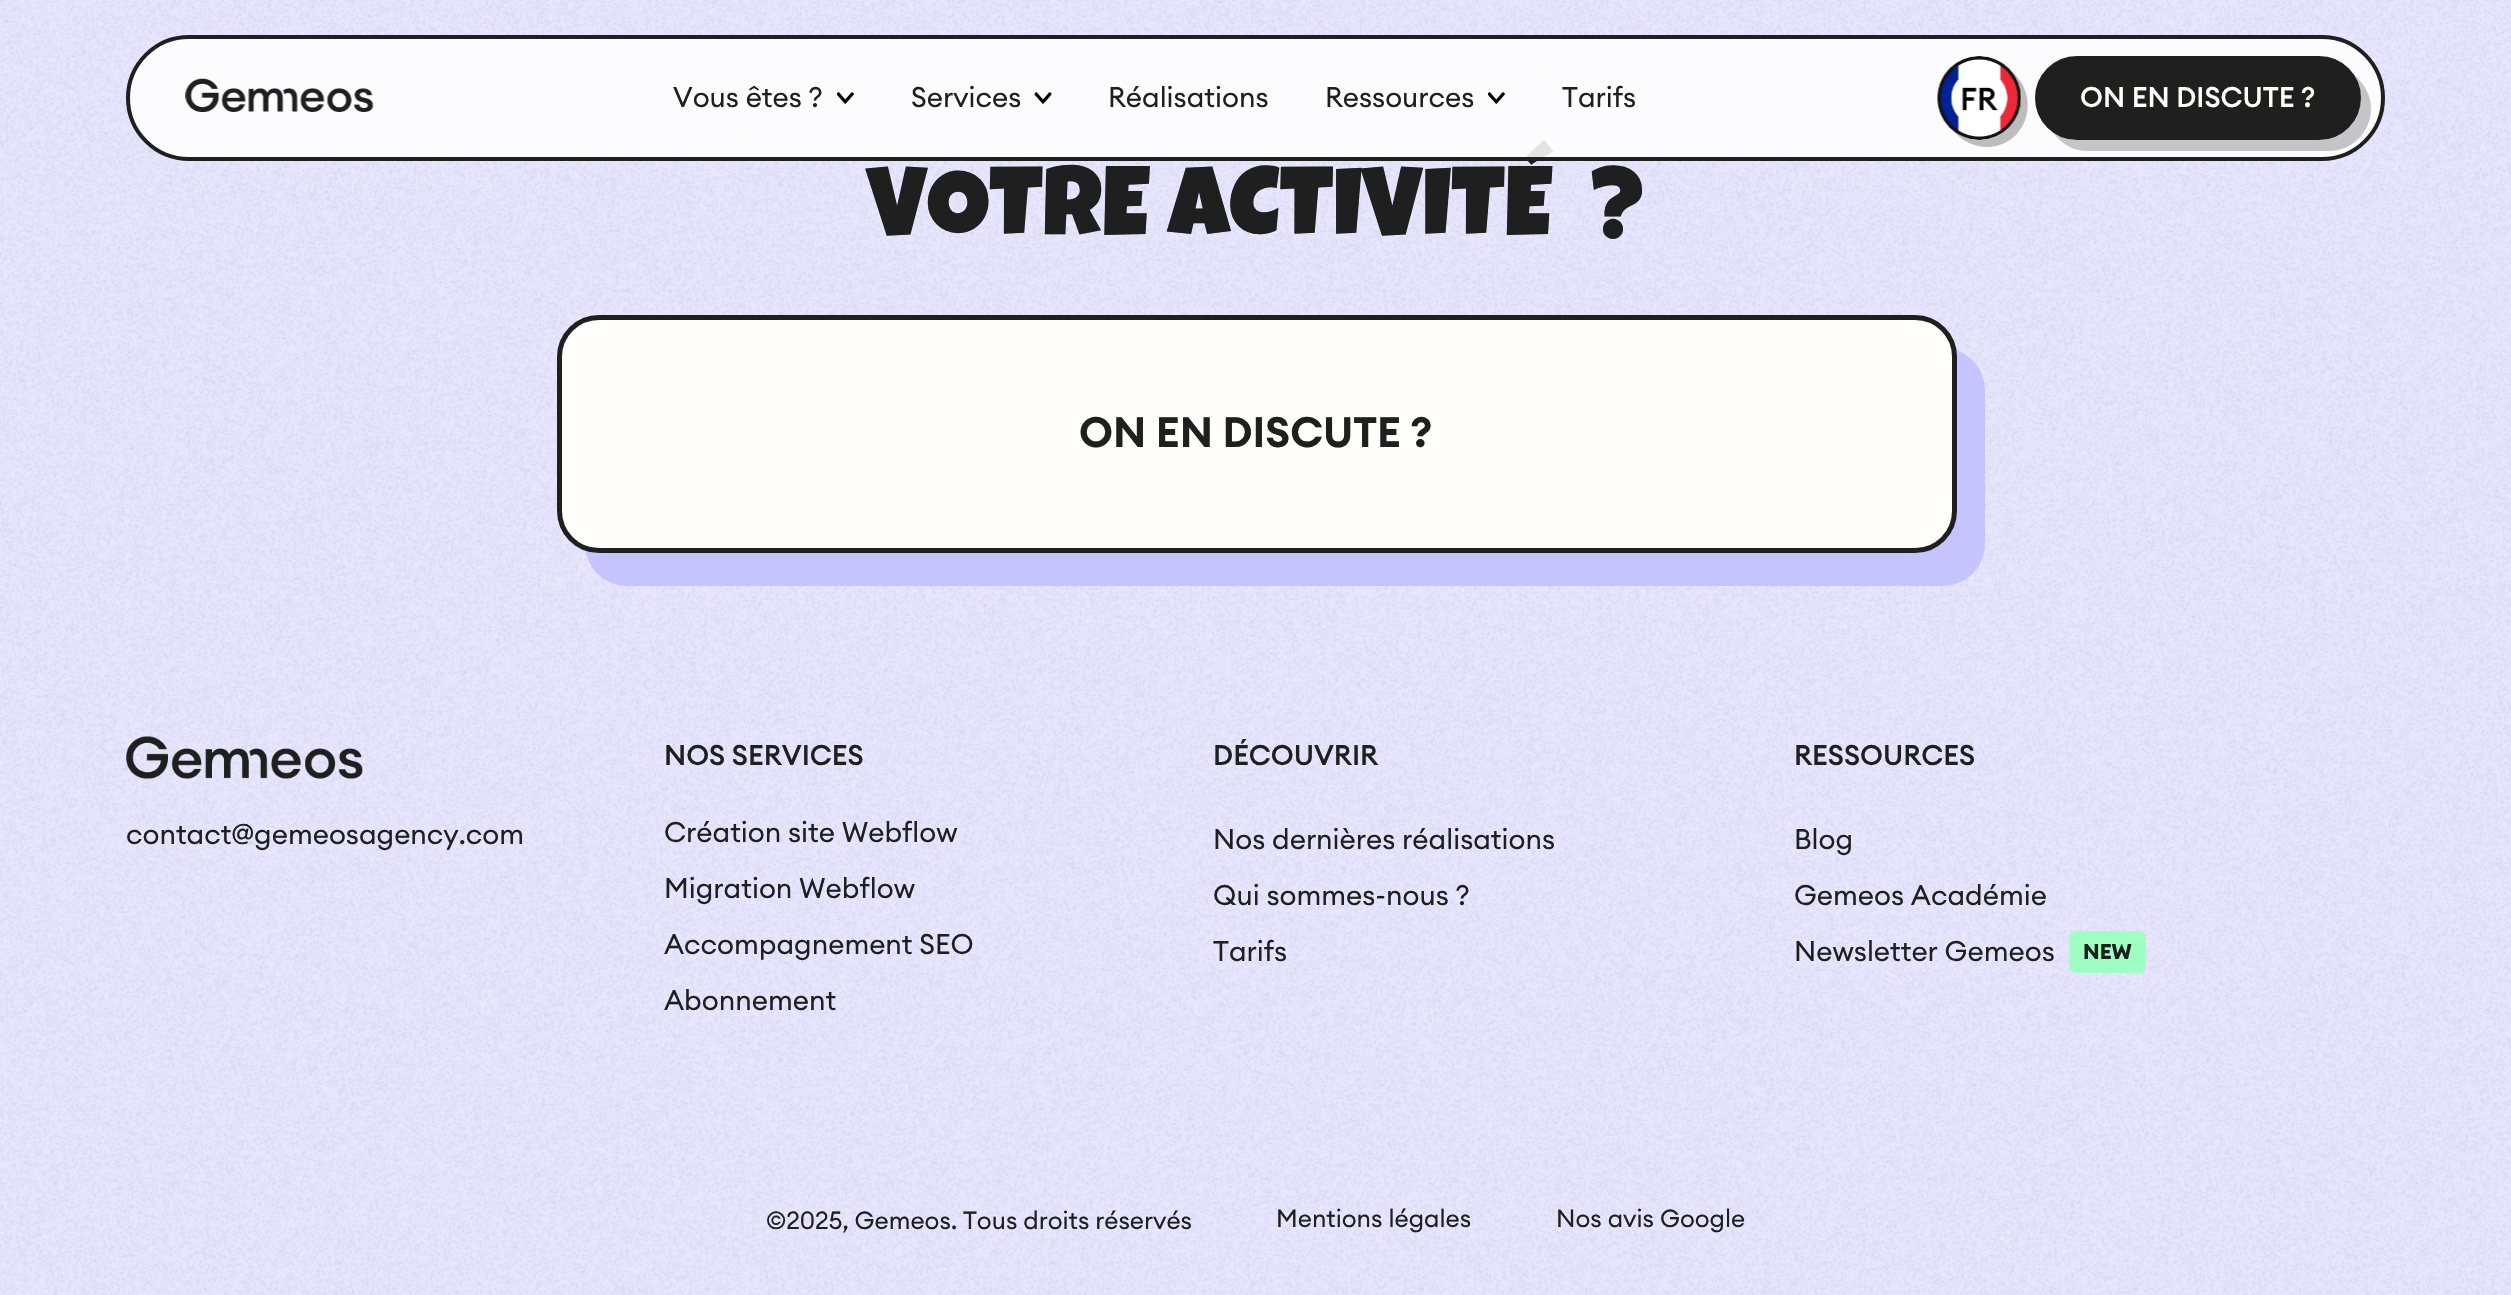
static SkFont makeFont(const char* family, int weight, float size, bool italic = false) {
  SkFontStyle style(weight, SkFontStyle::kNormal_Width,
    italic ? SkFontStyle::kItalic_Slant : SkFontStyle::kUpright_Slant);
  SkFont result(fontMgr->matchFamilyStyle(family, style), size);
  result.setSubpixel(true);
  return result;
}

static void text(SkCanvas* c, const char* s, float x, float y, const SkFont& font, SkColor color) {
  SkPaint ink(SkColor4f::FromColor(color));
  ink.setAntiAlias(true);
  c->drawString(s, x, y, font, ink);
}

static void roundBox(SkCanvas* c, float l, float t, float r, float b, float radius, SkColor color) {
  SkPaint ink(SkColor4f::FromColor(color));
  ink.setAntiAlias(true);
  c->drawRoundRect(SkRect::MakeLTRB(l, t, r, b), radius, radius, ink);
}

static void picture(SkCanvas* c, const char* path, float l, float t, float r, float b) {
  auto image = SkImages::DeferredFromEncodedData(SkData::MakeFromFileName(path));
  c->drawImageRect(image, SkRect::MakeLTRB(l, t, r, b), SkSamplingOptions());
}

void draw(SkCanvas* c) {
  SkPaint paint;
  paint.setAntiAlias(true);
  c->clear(0xffe8e7ff);
  picture(c, "img_06.png", 0, 0, 2511, 1295);
  SkFont face1 = makeFont("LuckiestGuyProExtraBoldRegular", 800, 98);
  text(c, "VOTRE ACTIVITÉ  ?", 867, 235, face1, 0xff1f1f1f);
  paint.setColor(0xe0ffffff);
  c->drawRoundRect(SkRect::MakeLTRB(128, 37, 2383, 159), 61, 61, paint);
  paint.setStyle(SkPaint::kStroke_Style);
  paint.setStrokeWidth(4);
  paint.setColor(0xff1f1f1f);
  c->drawRoundRect(SkRect::MakeLTRB(128, 37, 2383, 159), 61, 61, paint);
  picture(c, "img_01.png", 185, 78, 374, 112);
  SkFont face2 = makeFont("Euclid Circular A", 400, 28);
  text(c, "Vous êtes ?", 673, 107, face2, 0xff1f1f1f);
  picture(c, "img_02.png", 837, 92, 854, 104);
  text(c, "Services", 911, 107, face2, 0xff1f1f1f);
  picture(c, "img_03.png", 1034, 92, 1052, 104);
  text(c, "Réalisations", 1108, 107, face2, 0xff1f1f1f);
  text(c, "Ressources", 1325, 107, face2, 0xff1f1f1f);
  picture(c, "img_04.png", 1488, 92, 1505, 104);
  text(c, "Tarifs", 1562, 107, face2, 0xff1f1f1f);
  paint.setStyle(SkPaint::kFill_Style);
  paint.setColor(0xffbdbdbf);
  c->drawPath(SkPathBuilder().moveTo(1953, 130).cubicTo(1968, 150, 1998, 153, 2016, 135).cubicTo(2033, 117, 2031, 88, 2013, 73).cubicTo(2025, 89, 2024, 113, 2009, 128).cubicTo(1994, 143, 1969, 144, 1953, 130).close().detach(), paint);
  picture(c, "img_05.png", 1936, 56, 2021, 140);
  paint.setColor(0xffc5c4c7);
  c->drawPath(SkPathBuilder().moveTo(2053, 132).cubicTo(2061, 144, 2073, 151, 2088, 151).lineTo(2329, 151).cubicTo(2352, 151, 2371, 132, 2371, 109).cubicTo(2371, 95, 2364, 83, 2354, 75).cubicTo(2358, 82, 2361, 90, 2361, 98).cubicTo(2361, 121, 2342, 140, 2319, 140).lineTo(2077, 140).cubicTo(2068, 140, 2060, 137, 2053, 132).close().detach(), paint);
  paint.setColor(0xff1f1f1f);
  c->drawRoundRect(SkRect::MakeLTRB(2037, 58, 2359, 138), 40, 40, paint);
  paint.setStyle(SkPaint::kStroke_Style);
  c->drawRoundRect(SkRect::MakeLTRB(2037, 58, 2359, 138), 40, 40, paint);
  SkFont face3 = makeFont("Euclid Circular A", 500, 28);
  text(c, "ON EN DISCUTE ?", 2080, 107, face3, 0xfffffefa);
  roundBox(c, 585, 348, 1985, 586, 42, 0xffc6c4ff);
  paint.setStyle(SkPaint::kFill_Style);
  paint.setColor(0xfffffefa);
  c->drawRoundRect(SkRect::MakeLTRB(559.5f, 317.5f, 1954.5f, 550.5f), 39.5f, 39.5f, paint);
  paint.setStyle(SkPaint::kStroke_Style);
  paint.setStrokeWidth(5);
  paint.setColor(0xff1f1f1f);
  c->drawRoundRect(SkRect::MakeLTRB(559.5f, 317.5f, 1954.5f, 550.5f), 39.5f, 39.5f, paint);
  SkFont face4 = makeFont("Euclid Circular A", 600, 42);
  text(c, "ON EN DISCUTE ?", 1079, 447, face4, 0xff1f1f1f);
  picture(c, "img_07.png", 126, 736, 363, 779);
  text(c, "contact@gemeosagency.com", 126, 844, face2, 0xff1f1f1f);
  text(c, "NOS SERVICES", 664, 765, face3, 0xff1f1f1f);
  text(c, "Création site Webflow", 664, 842, face2, 0xff1f1f1f);
  text(c, "Migration Webflow", 664, 898, face2, 0xff1f1f1f);
  text(c, "Accompagnement SEO", 664, 954, face2, 0xff1f1f1f);
  text(c, "Abonnement", 664, 1010, face2, 0xff1f1f1f);
  text(c, "DÉCOUVRIR", 1213, 765, face3, 0xff1f1f1f);
  text(c, "Nos dernières réalisations", 1213, 849, face2, 0xff1f1f1f);
  text(c, "Qui sommes-nous ?", 1213, 905, face2, 0xff1f1f1f);
  text(c, "Tarifs", 1213, 961, face2, 0xff1f1f1f);
  text(c, "RESSOURCES", 1794, 765, face3, 0xff1f1f1f);
  text(c, "Blog", 1794, 849, face2, 0xff1f1f1f);
  text(c, "Gemeos Académie", 1794, 905, face2, 0xff1f1f1f);
  text(c, "Newsletter Gemeos", 1794, 961, face2, 0xff1f1f1f);
  roundBox(c, 2069, 931, 2146, 973, 7, 0xff9effc3);
  SkFont face5 = makeFont("Euclid Circular A", 700, 21);
  text(c, "NEW", 2083, 959, face5, 0xff1f1f1f);
  SkFont face6 = makeFont("Euclid Circular A", 400, 24.5f);
  text(c, "©2025, Gemeos. Tous droits réservés", 766, 1229, face6, 0xff1f1f1f);
  text(c, "Mentions légales", 1276, 1227, face6, 0xff1f1f1f);
  text(c, "Nos avis Google", 1556, 1227, face6, 0xff1f1f1f);
}
